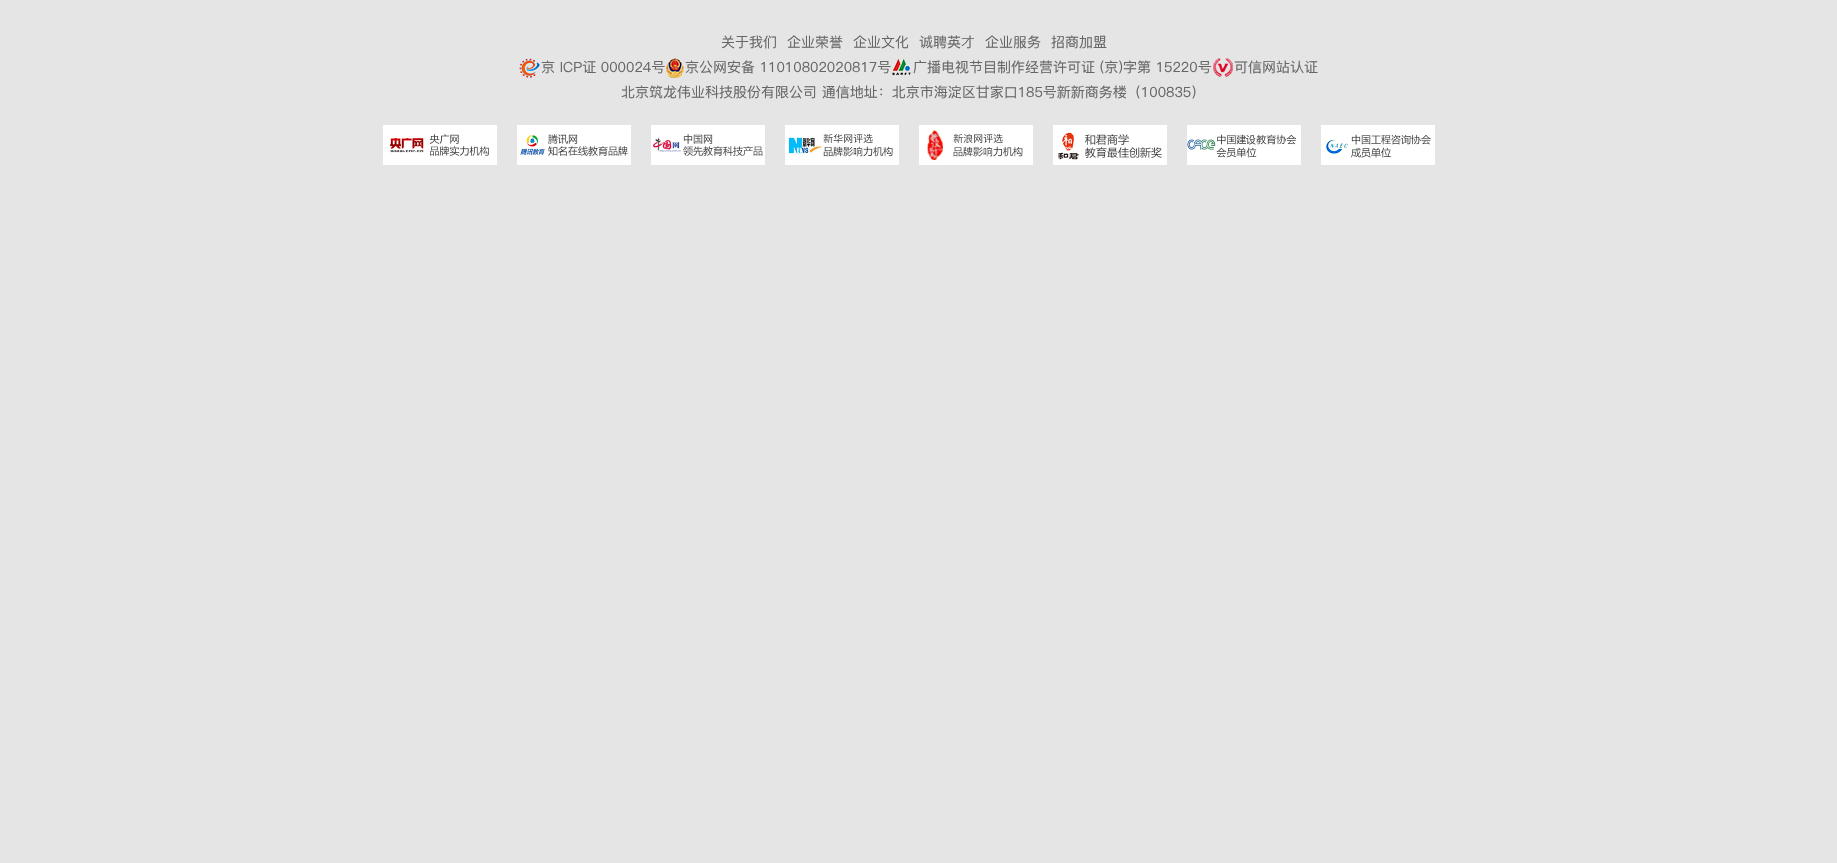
static SkFont makeFont(const char* family, int weight, float size, bool italic = false) {
  SkFontStyle style(weight, SkFontStyle::kNormal_Width,
    italic ? SkFontStyle::kItalic_Slant : SkFontStyle::kUpright_Slant);
  SkFont result(fontMgr->matchFamilyStyle(family, style), size);
  result.setSubpixel(true);
  return result;
}

static void text(SkCanvas* c, const char* s, float x, float y, const SkFont& font, SkColor color) {
  SkPaint ink(SkColor4f::FromColor(color));
  ink.setAntiAlias(true);
  c->drawString(s, x, y, font, ink);
}

static void picture(SkCanvas* c, const char* path, float l, float t, float r, float b) {
  auto image = SkImages::DeferredFromEncodedData(SkData::MakeFromFileName(path));
  c->drawImageRect(image, SkRect::MakeLTRB(l, t, r, b), SkSamplingOptions());
}

void draw(SkCanvas* c) {
  SkPaint paint;
  paint.setAntiAlias(true);
  c->clear(0xffe5e5e5);
  SkFont face1 = makeFont("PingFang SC", 500, 14);
  text(c, "关于我们", 721, 47, face1, 0xff666666);
  text(c, "企业荣誉", 787, 47, face1, 0xff666666);
  text(c, "企业文化", 853, 47, face1, 0xff666666);
  text(c, "诚聘英才", 919, 47, face1, 0xff666666);
  text(c, "企业服务", 985, 47, face1, 0xff666666);
  text(c, "招商加盟", 1051, 47, face1, 0xff666666);
  picture(c, "img_01.png", 519, 58, 540, 78);
  text(c, "京 ICP证 000024号", 541, 72, face1, 0xff666666);
  picture(c, "img_02.png", 666, 58, 684, 78);
  text(c, "京公网安备 11010802020817号", 685, 72, face1, 0xff666666);
  picture(c, "img_03.png", 892, 59, 911, 76);
  text(c, "广播电视节目制作经营许可证 (京)字第 15220号", 913, 72, face1, 0xff666666);
  picture(c, "img_04.png", 1213, 58, 1233, 77);
  text(c, "可信网站认证", 1234, 72, face1, 0xff666666);
  text(c, "北京筑龙伟业科技股份有限公司 通信地址：北京市海淀区甘家口185号新新商务楼（100835）", 621, 97, face1, 0xff666666);
  picture(c, "img_05.png", 383, 125, 497, 165);
  picture(c, "img_06.png", 517, 125, 631, 165);
  picture(c, "img_07.png", 651, 125, 765, 165);
  picture(c, "img_08.png", 785, 125, 899, 165);
  picture(c, "img_09.png", 919, 125, 1033, 165);
  picture(c, "img_10.png", 1053, 125, 1167, 165);
  picture(c, "img_11.png", 1187, 125, 1301, 165);
  picture(c, "img_12.png", 1321, 125, 1435, 165);
}
